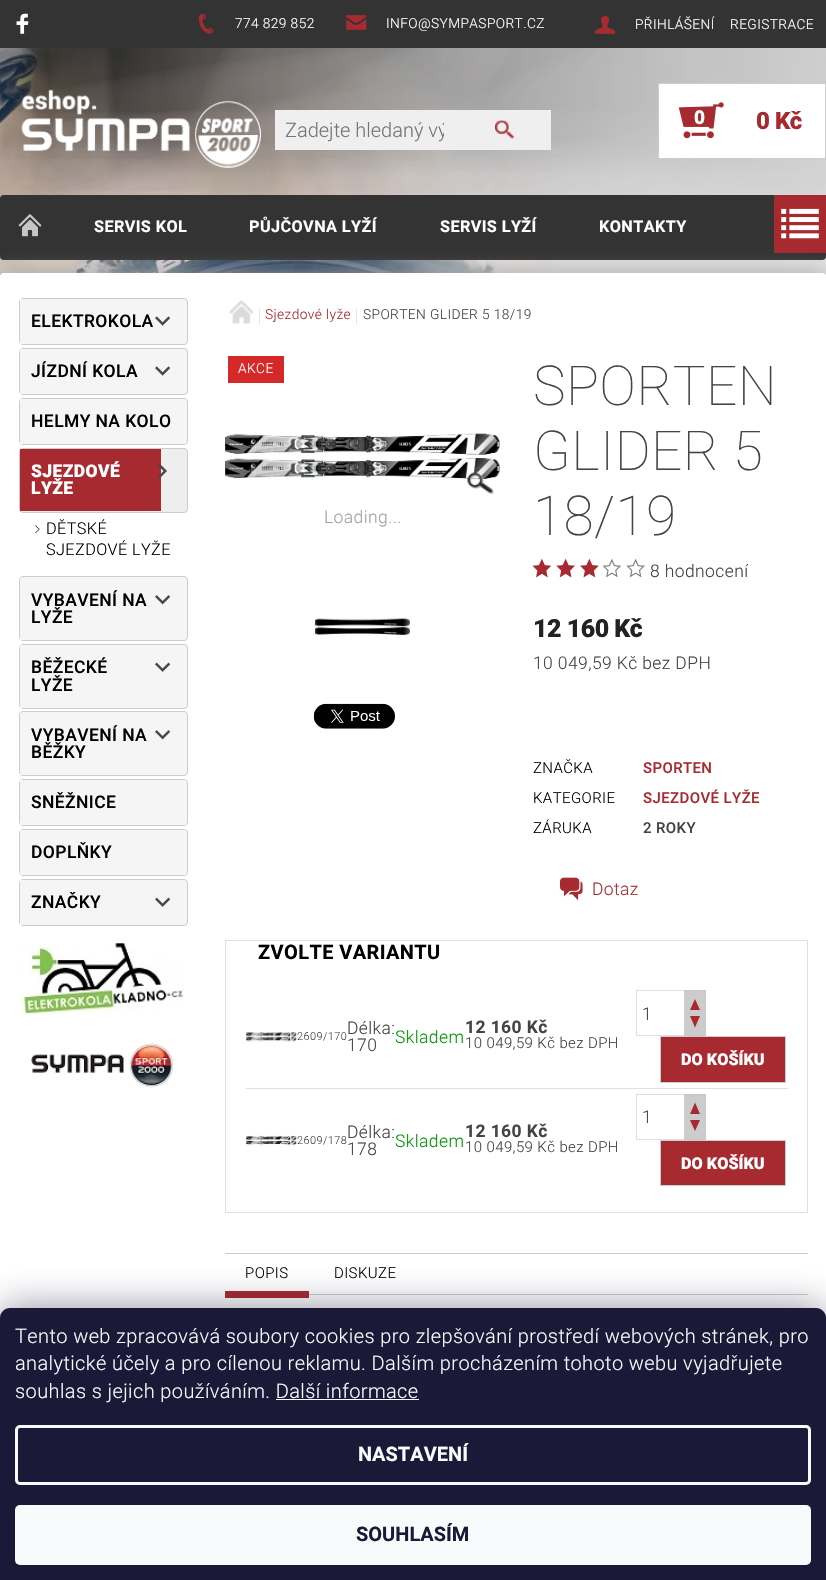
static SkFont makeFont(const char* family, int weight, float size, bool italic = false) {
  SkFontStyle style(weight, SkFontStyle::kNormal_Width,
    italic ? SkFontStyle::kItalic_Slant : SkFontStyle::kUpright_Slant);
  SkFont result(fontMgr->matchFamilyStyle(family, style), size);
  result.setSubpixel(true);
  return result;
}

static void text(SkCanvas* c, const char* s, float x, float y, const SkFont& font, SkColor color) {
  SkPaint ink(SkColor4f::FromColor(color));
  ink.setAntiAlias(true);
  c->drawString(s, x, y, font, ink);
}

static void spacedText(SkCanvas* c, const char* s, float x, float y, const SkFont& font, const SkPaint& ink, float letter, float word) {
  std::vector<SkGlyphID> glyphs(font.countText(s, strlen(s), SkTextEncoding::kUTF8));
  std::vector<float> xs(glyphs.size());
  font.textToGlyphs(s, strlen(s), SkTextEncoding::kUTF8, glyphs);
  font.getXPos(glyphs, xs, x);
  float extra = 0;
  for (size_t i = 0; i < glyphs.size(); i++) {
    xs[i] += extra;
    extra += letter + word * (glyphs[i] == font.unicharToGlyph(' '));
  }
  c->drawTextBlob(SkTextBlob::MakeFromPosHGlyphs(glyphs, xs, y, font), 0, 0, ink);
}

static void box(SkCanvas* c, float l, float t, float r, float b, SkColor color) {
  SkPaint ink(SkColor4f::FromColor(color));
  ink.setAntiAlias(true);
  c->drawRect(SkRect::MakeLTRB(l, t, r, b), ink);
}

static void roundBox(SkCanvas* c, float l, float t, float r, float b, float radius, SkColor color) {
  SkPaint ink(SkColor4f::FromColor(color));
  ink.setAntiAlias(true);
  c->drawRoundRect(SkRect::MakeLTRB(l, t, r, b), radius, radius, ink);
}

static void picture(SkCanvas* c, const char* path, float l, float t, float r, float b) {
  auto image = SkImages::DeferredFromEncodedData(SkData::MakeFromFileName(path));
  c->drawImageRect(image, SkRect::MakeLTRB(l, t, r, b), SkSamplingOptions());
}

void draw(SkCanvas* c) {
  SkPaint paint;
  paint.setAntiAlias(true);
  c->clear(0xffffffff);
  picture(c, "img_01.png", 0, 48, 826, 277);
  picture(c, "img_02.png", 0, 48, 826, 199);
  box(c, 0, 0, 826, 48, 0xff333333);
  picture(c, "img_03.png", 16, 13, 29, 34);
  picture(c, "img_04.png", 198, 13, 214, 34);
  SkFont face1 = makeFont("Roboto", 300, 13.75f);
  paint.setColor(0xffffffff);
  spacedText(c, "774 829 852", 235, 28, face1, paint, 0.4f, 0);
  picture(c, "img_05.png", 346, 15, 367, 30);
  spacedText(c, "INFO@SYMPASPORT.CZ", 386, 28, face1, paint, 0.4f, 0);
  picture(c, "img_06.png", 595, 16, 615, 34);
  spacedText(c, "PŘIHLÁŠENÍ", 635, 29, face1, paint, 0.4f, 0);
  spacedText(c, "REGISTRACE", 730, 29, face1, paint, 0.4f, 0);
  picture(c, "img_07.png", 21, 89, 261, 168);
  box(c, 275, 110, 551, 150, 0xffefefef);
  c->save();
  c->clipRect(SkRect::MakeLTRB(285, 119, 444, 143));
  SkFont face2 = makeFont("Roboto", 300, 20);
  text(c, "Zadejte hledaný vý", 285, 137, face2, 0xff757575);
  c->restore();
  box(c, 495, 119, 514, 139, 0xffa72a30);
  picture(c, "img_08.png", 495, 119, 515, 140);
  c->drawRect(SkRect::MakeLTRB(658.5f, 83.5f, 825.5f, 158.5f), paint);
  paint.setStyle(SkPaint::kStroke_Style);
  paint.setStrokeWidth(1);
  paint.setColor(0xffcccccc);
  c->drawRect(SkRect::MakeLTRB(658.5f, 83.5f, 825.5f, 158.5f), paint);
  picture(c, "img_09.png", 678, 102, 724, 139);
  SkFont face3 = makeFont("Roboto", 900, 19);
  paint.setStyle(SkPaint::kFill_Style);
  paint.setColor(0xffffffff);
  spacedText(c, "0", 694, 124, face3, paint, -0.5f, 0);
  SkFont face4 = makeFont("Roboto", 900, 24);
  paint.setColor(0xffa72a30);
  spacedText(c, "0 Kč", 756, 129, face4, paint, -0.5f, 0);
  roundBox(c, 0, 195, 826, 260, 4, 0xff333333);
  picture(c, "img_10.png", 18, 214, 42, 237);
  SkFont face5 = makeFont("Roboto", 700, 16.25f);
  paint.setColor(0xffffffff);
  spacedText(c, "SERVIS KOL", 94, 232, face5, paint, 0.4f, 0);
  spacedText(c, "PŮJČOVNA LYŽÍ", 249, 232, face5, paint, 0.4f, 0);
  spacedText(c, "SERVIS LYŽÍ", 440, 232, face5, paint, 0.4f, 0);
  spacedText(c, "KONTAKTY", 599, 232, face5, paint, 0.4f, 0);
  paint.setColor(0xffaaaaaa);
  paint.setMaskFilter(SkMaskFilter::MakeBlur(kNormal_SkBlurStyle, 9.5f));
  c->drawRoundRect(SkRect::MakeLTRB(0, 273, 826, 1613), 4, 4, paint);
  paint.setMaskFilter(nullptr);
  box(c, 774, 195, 826, 253, 0xffa72a30);
  picture(c, "img_11.png", 781, 208, 819, 239);
  roundBox(c, 0, 273, 826, 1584, 4, 0xffffffff);
  paint.setColor(0xfff5f5f5);
  c->drawRoundRect(SkRect::MakeLTRB(19.5f, 298.5f, 187.5f, 344.5f), 3.5f, 3.5f, paint);
  paint.setStyle(SkPaint::kStroke_Style);
  paint.setColor(0xffcccccc);
  c->drawRoundRect(SkRect::MakeLTRB(19.5f, 298.5f, 187.5f, 344.5f), 3.5f, 3.5f, paint);
  box(c, 20, 299, 23, 344, 0xfff5f5f5);
  SkFont face6 = makeFont("Roboto", 500, 17.5f);
  paint.setStyle(SkPaint::kFill_Style);
  paint.setColor(0xff000000);
  spacedText(c, "ELEKTROKOLA", 31, 327, face6, paint, 0.4f, 0);
  picture(c, "img_12.png", 155, 316, 171, 326);
  paint.setColor(0xfff5f5f5);
  c->drawRoundRect(SkRect::MakeLTRB(19.5f, 348.5f, 187.5f, 394.5f), 3.5f, 3.5f, paint);
  paint.setStyle(SkPaint::kStroke_Style);
  paint.setColor(0xffcccccc);
  c->drawRoundRect(SkRect::MakeLTRB(19.5f, 348.5f, 187.5f, 394.5f), 3.5f, 3.5f, paint);
  box(c, 20, 349, 23, 394, 0xfff5f5f5);
  paint.setStyle(SkPaint::kFill_Style);
  paint.setColor(0xff000000);
  spacedText(c, "JÍZDNÍ KOLA", 31, 377, face6, paint, 0.4f, 0);
  picture(c, "img_12.png", 155, 366, 171, 376);
  paint.setColor(0xfff5f5f5);
  c->drawRoundRect(SkRect::MakeLTRB(19.5f, 398.5f, 187.5f, 444.5f), 3.5f, 3.5f, paint);
  paint.setStyle(SkPaint::kStroke_Style);
  paint.setColor(0xffcccccc);
  c->drawRoundRect(SkRect::MakeLTRB(19.5f, 398.5f, 187.5f, 444.5f), 3.5f, 3.5f, paint);
  box(c, 20, 399, 186, 444, 0xfff5f5f5);
  paint.setStyle(SkPaint::kFill_Style);
  paint.setColor(0xff000000);
  spacedText(c, "HELMY NA KOLO", 31, 427, face6, paint, 0.4f, 0);
  paint.setColor(0xffeeeeee);
  c->drawRoundRect(SkRect::MakeLTRB(19.5f, 448.5f, 187.5f, 512.5f), 3.5f, 3.5f, paint);
  paint.setStyle(SkPaint::kStroke_Style);
  paint.setColor(0xffcccccc);
  c->drawRoundRect(SkRect::MakeLTRB(19.5f, 448.5f, 187.5f, 512.5f), 3.5f, 3.5f, paint);
  box(c, 20, 449, 161, 511, 0xffa72a30);
  SkFont face7 = makeFont("Roboto", 900, 17.5f);
  paint.setStyle(SkPaint::kFill_Style);
  paint.setColor(0xffffffff);
  spacedText(c, "SJEZDOVÉ", 31, 477, face7, paint, 0.4f, 0);
  spacedText(c, "LYŽE", 31, 494, face7, paint, 0.4f, 0);
  picture(c, "img_13.png", 157, 463, 167, 479);
  picture(c, "img_14.png", 35, 525, 40, 533);
  SkFont face8 = makeFont("Roboto", 300, 16.25f);
  paint.setColor(0xff000000);
  spacedText(c, "DĚTSKÉ", 46, 534, face8, paint, 0.4f, 0);
  spacedText(c, "SJEZDOVÉ LYŽE", 46, 555, face8, paint, 0.4f, 0);
  paint.setColor(0xfff5f5f5);
  c->drawRoundRect(SkRect::MakeLTRB(19.5f, 576.5f, 187.5f, 640.5f), 3.5f, 3.5f, paint);
  paint.setStyle(SkPaint::kStroke_Style);
  paint.setColor(0xffcccccc);
  c->drawRoundRect(SkRect::MakeLTRB(19.5f, 576.5f, 187.5f, 640.5f), 3.5f, 3.5f, paint);
  box(c, 20, 578, 23, 640, 0xfff5f5f5);
  paint.setStyle(SkPaint::kFill_Style);
  paint.setColor(0xff000000);
  spacedText(c, "VYBAVENÍ NA", 31, 606, face6, paint, 0.4f, 0);
  spacedText(c, "LYŽE", 31, 623, face6, paint, 0.4f, 0);
  picture(c, "img_15.png", 155, 595, 171, 605);
  paint.setColor(0xfff5f5f5);
  c->drawRoundRect(SkRect::MakeLTRB(19.5f, 644.5f, 187.5f, 708.5f), 3.5f, 3.5f, paint);
  paint.setStyle(SkPaint::kStroke_Style);
  paint.setColor(0xffcccccc);
  c->drawRoundRect(SkRect::MakeLTRB(19.5f, 644.5f, 187.5f, 708.5f), 3.5f, 3.5f, paint);
  box(c, 20, 645, 23, 708, 0xfff5f5f5);
  paint.setStyle(SkPaint::kFill_Style);
  paint.setColor(0xff000000);
  spacedText(c, "BĚŽECKÉ", 31, 673, face6, paint, 0.4f, 0);
  spacedText(c, "LYŽE", 31, 691, face6, paint, 0.4f, 0);
  picture(c, "img_16.png", 155, 662, 171, 672);
  paint.setColor(0xfff5f5f5);
  c->drawRoundRect(SkRect::MakeLTRB(19.5f, 711.5f, 187.5f, 775.5f), 3.5f, 3.5f, paint);
  paint.setStyle(SkPaint::kStroke_Style);
  paint.setColor(0xffcccccc);
  c->drawRoundRect(SkRect::MakeLTRB(19.5f, 711.5f, 187.5f, 775.5f), 3.5f, 3.5f, paint);
  box(c, 20, 713, 23, 775, 0xfff5f5f5);
  paint.setStyle(SkPaint::kFill_Style);
  paint.setColor(0xff000000);
  spacedText(c, "VYBAVENÍ NA", 31, 741, face6, paint, 0.4f, 0);
  spacedText(c, "BĚŽKY", 31, 758, face6, paint, 0.4f, 0);
  picture(c, "img_15.png", 155, 730, 171, 740);
  paint.setColor(0xfff5f5f5);
  c->drawRoundRect(SkRect::MakeLTRB(19.5f, 779.5f, 187.5f, 825.5f), 3.5f, 3.5f, paint);
  paint.setStyle(SkPaint::kStroke_Style);
  paint.setColor(0xffcccccc);
  c->drawRoundRect(SkRect::MakeLTRB(19.5f, 779.5f, 187.5f, 825.5f), 3.5f, 3.5f, paint);
  box(c, 20, 780, 186, 825, 0xfff5f5f5);
  paint.setStyle(SkPaint::kFill_Style);
  paint.setColor(0xff000000);
  spacedText(c, "SNĚŽNICE", 31, 808, face6, paint, 0.4f, 0);
  paint.setColor(0xfff5f5f5);
  c->drawRoundRect(SkRect::MakeLTRB(19.5f, 829.5f, 187.5f, 875.5f), 3.5f, 3.5f, paint);
  paint.setStyle(SkPaint::kStroke_Style);
  paint.setColor(0xffcccccc);
  c->drawRoundRect(SkRect::MakeLTRB(19.5f, 829.5f, 187.5f, 875.5f), 3.5f, 3.5f, paint);
  box(c, 20, 830, 186, 875, 0xfff5f5f5);
  paint.setStyle(SkPaint::kFill_Style);
  paint.setColor(0xff000000);
  spacedText(c, "DOPLŇKY", 31, 858, face6, paint, 0.4f, 0);
  paint.setColor(0xfff5f5f5);
  c->drawRoundRect(SkRect::MakeLTRB(19.5f, 879.5f, 187.5f, 925.5f), 3.5f, 3.5f, paint);
  paint.setStyle(SkPaint::kStroke_Style);
  paint.setColor(0xffcccccc);
  c->drawRoundRect(SkRect::MakeLTRB(19.5f, 879.5f, 187.5f, 925.5f), 3.5f, 3.5f, paint);
  box(c, 20, 880, 23, 925, 0xfff5f5f5);
  paint.setStyle(SkPaint::kFill_Style);
  paint.setColor(0xff000000);
  spacedText(c, "ZNAČKY", 31, 908, face6, paint, 0.4f, 0);
  picture(c, "img_16.png", 155, 897, 171, 907);
  picture(c, "img_17.png", 19, 943, 184, 1015);
  picture(c, "img_18.png", 31, 1043, 173, 1088);
  picture(c, "img_19.png", 228, 300, 254, 324);
  box(c, 259, 308, 260, 325, 0xffe7e7e7);
  paint.setColor(0xffa72a30);
  spacedText(c, "Sjezdové lyže", 265, 319, face1, paint, 0.4f, 0);
  box(c, 356, 308, 357, 325, 0xffe7e7e7);
  paint.setColor(0xff444444);
  spacedText(c, "SPORTEN GLIDER 5 18/19", 363, 319, face1, paint, 0.4f, 0);
  box(c, 228, 356, 284, 383, 0xffd52828);
  paint.setColor(0xffffffff);
  spacedText(c, "AKCE", 238, 373, face1, paint, 0.4f, 0);
  picture(c, "img_21.png", 225, 433, 500, 480);
  picture(c, "img_20.png", 467, 472, 494, 495);
  SkFont face9 = makeFont("Roboto", 300, 17.5f);
  paint.setColor(0xffa2a2a2);
  spacedText(c, "Loading...", 324, 523, face9, paint, 0.4f, 0);
  picture(c, "img_22.png", 315, 617, 410, 636);
  picture(c, "img_23.png", 313, 703, 395, 729);
  SkFont face10 = makeFont("Roboto", 100, 55);
  paint.setColor(0xff444444);
  spacedText(c, "SPORTEN", 533, 405, face10, paint, 0.4f, 0);
  spacedText(c, "GLIDER 5", 533, 470, face10, paint, 0.4f, 0);
  spacedText(c, "18/19", 533, 535, face10, paint, 0.4f, 0);
  picture(c, "img_24.png", 532, 558, 552, 578);
  picture(c, "img_25.png", 556, 558, 575, 578);
  picture(c, "img_26.png", 580, 558, 599, 578);
  picture(c, "img_27.png", 602, 558, 622, 578);
  picture(c, "img_28.png", 626, 558, 645, 578);
  spacedText(c, "8 hodnocení", 650, 577, face9, paint, 0.4f, 0);
  SkFont face11 = makeFont("Roboto", 900, 25);
  paint.setColor(0xff222222);
  spacedText(c, "12 160 Kč", 533, 637, face11, paint, -0.5f, 0);
  paint.setColor(0xff444444);
  spacedText(c, "10 049,59 Kč bez DPH", 533, 669, face9, paint, 0.4f, 0);
  SkFont face12 = makeFont("Roboto", 300, 15);
  paint.setColor(0xff000000);
  spacedText(c, "ZNAČKA", 533, 773, face12, paint, 0.4f, 0);
  SkFont face13 = makeFont("Roboto", 500, 15);
  paint.setColor(0xffa72a30);
  spacedText(c, "SPORTEN", 643, 773, face13, paint, 0.4f, 0);
  paint.setColor(0xff000000);
  spacedText(c, "KATEGORIE", 533, 803, face12, paint, 0.4f, 0);
  paint.setColor(0xffa72a30);
  spacedText(c, "SJEZDOVÉ LYŽE", 643, 803, face13, paint, 0.4f, 0);
  paint.setColor(0xff000000);
  spacedText(c, "ZÁRUKA", 533, 833, face12, paint, 0.4f, 0);
  paint.setColor(0xff444444);
  spacedText(c, "2 ROKY", 643, 833, face13, paint, 0.4f, 0);
  picture(c, "img_29.png", 560, 877, 583, 900);
  paint.setColor(0xffa72a30);
  spacedText(c, "Dotaz", 592, 895, face9, paint, 0.4f, 0);
  paint.setStyle(SkPaint::kStroke_Style);
  paint.setColor(0xffe0e0e0);
  c->drawRect(SkRect::MakeLTRB(225.5f, 940.5f, 807.5f, 1212.5f), paint);
  SkFont face14 = makeFont("Roboto", 700, 20);
  paint.setStyle(SkPaint::kFill_Style);
  paint.setColor(0xff000000);
  spacedText(c, "ZVOLTE VARIANTU", 258, 959, face14, paint, 0.4f, 0);
  box(c, 246, 1088, 788, 1089, 0xffe0e0e0);
  picture(c, "img_30.png", 246, 1032, 297, 1043);
  SkFont face15 = makeFont("Roboto", 300, 11);
  paint.setColor(0xff444444);
  spacedText(c, "2609/170", 297, 1040, face15, paint, 0.4f, 0);
  spacedText(c, "Délka:", 347, 1034, face9, paint, 0.4f, 0);
  spacedText(c, "170", 347, 1051, face9, paint, 0.4f, 0);
  paint.setColor(0xff009901);
  spacedText(c, "Skladem", 395, 1043, face9, paint, 0.4f, 0);
  SkFont face16 = makeFont("Roboto", 700, 17.5f);
  paint.setColor(0xff444444);
  spacedText(c, "12 160 Kč", 465, 1033, face16, paint, 0.4f, 0);
  spacedText(c, "10 049,59 Kč bez DPH", 465, 1048, face12, paint, 0.4f, 0);
  paint.setStyle(SkPaint::kStroke_Style);
  paint.setColor(0xffe0e0e0);
  c->drawRect(SkRect::MakeLTRB(636.5f, 990.5f, 705.5f, 1035.5f), paint);
  text(c, "1", 642, 1020, face9, 0xff444444);
  box(c, 684, 991, 706, 1035, 0xffcccccc);
  box(c, 684, 990, 706, 991, 0xffc6c6c6);
  paint.setStyle(SkPaint::kFill_Style);
  paint.setColor(0xffa72a30);
  c->drawPath(SkPathBuilder().moveTo(700, 1010).lineTo(690, 1010).lineTo(695, 999).close().detach(), paint);
  box(c, 684, 1035, 706, 1036, 0xffc6c6c6);
  c->drawPath(SkPathBuilder().moveTo(690, 1016).lineTo(700, 1016).lineTo(695, 1027.5f).close().detach(), paint);
  c->drawRect(SkRect::MakeLTRB(660.5f, 1036.5f, 785.5f, 1082.5f), paint);
  paint.setStyle(SkPaint::kStroke_Style);
  paint.setColor(0xffcccccc);
  c->drawRect(SkRect::MakeLTRB(660.5f, 1036.5f, 785.5f, 1082.5f), paint);
  SkFont face17 = makeFont("Roboto", 900, 16.25f);
  text(c, "DO KOŠÍKU", 681, 1065, face17, 0xffffffff);
  picture(c, "img_31.png", 246, 1135, 297, 1147);
  paint.setStyle(SkPaint::kFill_Style);
  paint.setColor(0xff444444);
  spacedText(c, "2609/178", 297, 1144, face15, paint, 0.4f, 0);
  spacedText(c, "Délka:", 347, 1138, face9, paint, 0.4f, 0);
  spacedText(c, "178", 347, 1155, face9, paint, 0.4f, 0);
  paint.setColor(0xff009901);
  spacedText(c, "Skladem", 395, 1147, face9, paint, 0.4f, 0);
  paint.setColor(0xff444444);
  spacedText(c, "12 160 Kč", 465, 1137, face16, paint, 0.4f, 0);
  spacedText(c, "10 049,59 Kč bez DPH", 465, 1152, face12, paint, 0.4f, 0);
  paint.setStyle(SkPaint::kStroke_Style);
  paint.setColor(0xffe0e0e0);
  c->drawRect(SkRect::MakeLTRB(636.5f, 1094.5f, 705.5f, 1139.5f), paint);
  text(c, "1", 642, 1123, face9, 0xff444444);
  box(c, 684, 1095, 706, 1139, 0xffcccccc);
  box(c, 684, 1094, 706, 1095, 0xffc6c6c6);
  paint.setStyle(SkPaint::kFill_Style);
  paint.setColor(0xffa72a30);
  c->drawPath(SkPathBuilder().moveTo(700, 1114).lineTo(690, 1114).lineTo(695, 1102.5f).close().detach(), paint);
  box(c, 684, 1139, 706, 1140, 0xffc6c6c6);
  c->drawPath(SkPathBuilder().moveTo(690, 1120).lineTo(700, 1120).lineTo(695, 1131).close().detach(), paint);
  c->drawRect(SkRect::MakeLTRB(660.5f, 1140.5f, 785.5f, 1185.5f), paint);
  paint.setStyle(SkPaint::kStroke_Style);
  paint.setColor(0xffcccccc);
  c->drawRect(SkRect::MakeLTRB(660.5f, 1140.5f, 785.5f, 1185.5f), paint);
  text(c, "DO KOŠÍKU", 681, 1169, face17, 0xffffffff);
  box(c, 225, 1253, 808, 1254, 0xffcccccc);
  box(c, 309, 1294, 808, 1295, 0xffcccccc);
  box(c, 225, 1291, 309, 1298, 0xffa72a30);
  paint.setStyle(SkPaint::kFill_Style);
  paint.setColor(0xff000000);
  spacedText(c, "POPIS", 245, 1278, face12, paint, 0.4f, 0);
  spacedText(c, "DISKUZE", 334, 1278, face12, paint, 0.4f, 0);
  paint.setColor(0x801b1939);
  paint.setMaskFilter(SkMaskFilter::MakeBlur(kNormal_SkBlurStyle, 19));
  c->drawRoundRect(SkRect::MakeLTRB(0, 1308, 826, 1580), 10, 10, paint);
  paint.setMaskFilter(nullptr);
  paint.setColor(0xff1a1937);
  c->drawPath(SkPathBuilder().moveTo(10, 1308).lineTo(816, 1308).cubicTo(821.5f, 1308, 826, 1312.5f, 826, 1318).lineTo(826, 1580).lineTo(0, 1580).lineTo(0, 1318).cubicTo(0, 1312.5f, 4.5f, 1308, 10, 1308).close().detach(), paint);
  paint.setColor(0xfff8fafb);
  spacedText(c, "Tento web zpracovává soubory cookies pro zlepšování prostředí webových stránek, pro", 15, 1343, face2, paint, 0.4f, 0);
  spacedText(c, "analytické účely a pro cílenou reklamu. Dalším procházením tohoto webu vyjadřujete", 15, 1370, face2, paint, 0.4f, 0);
  spacedText(c, "souhlas s jejich používáním. Další informace", 15, 1398, face2, paint, 0.4f, 0);
  box(c, 276, 1399, 419, 1400, 0xfff8fafb);
  paint.setStyle(SkPaint::kStroke_Style);
  paint.setStrokeWidth(3);
  c->drawRoundRect(SkRect::MakeLTRB(16.5f, 1426.5f, 809.5f, 1483.5f), 3.5f, 3.5f, paint);
  text(c, "NASTAVENÍ", 358, 1461, face14, 0xfff8fafb);
  roundBox(c, 15, 1505, 811, 1565, 5, 0xfff8fafb);
  text(c, "SOUHLASÍM", 356, 1541, face14, 0xff1a1937);
}
